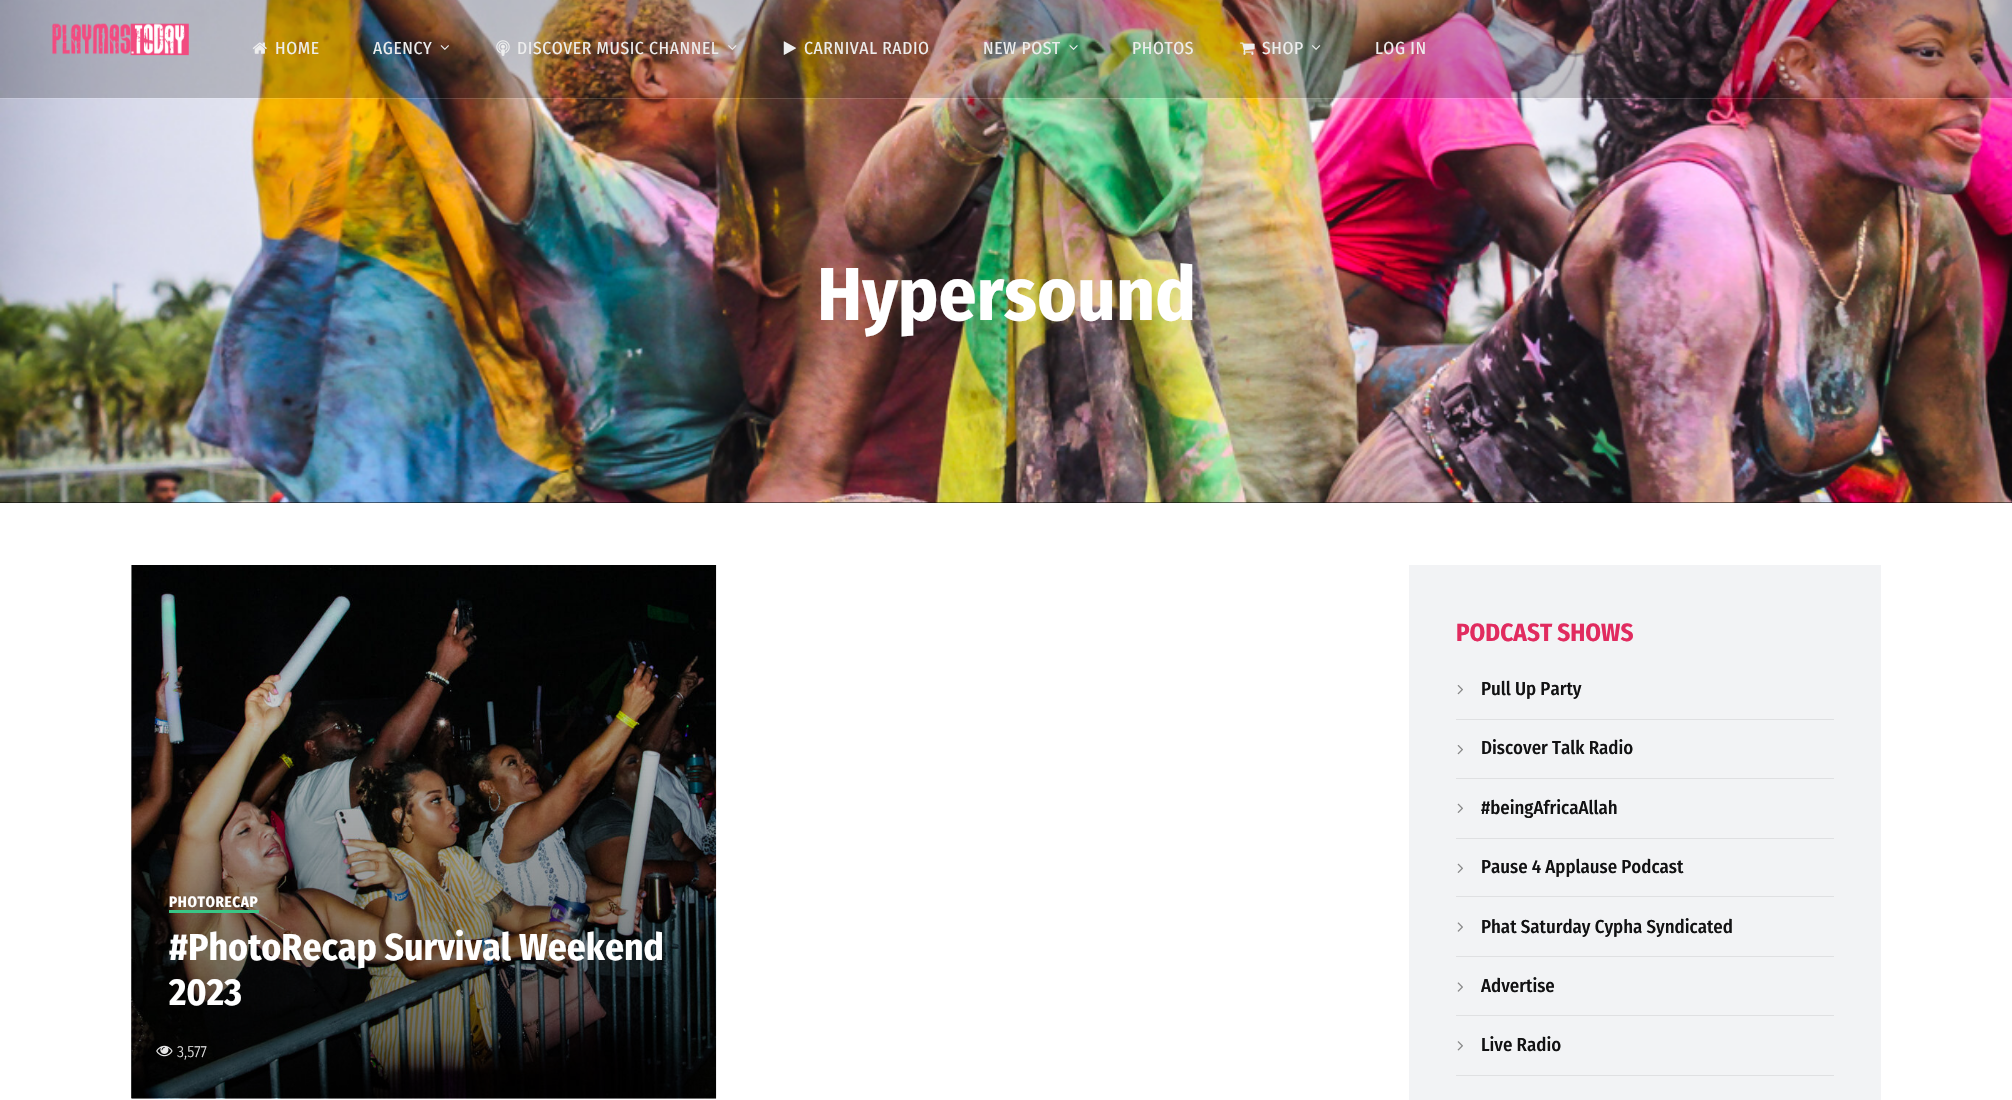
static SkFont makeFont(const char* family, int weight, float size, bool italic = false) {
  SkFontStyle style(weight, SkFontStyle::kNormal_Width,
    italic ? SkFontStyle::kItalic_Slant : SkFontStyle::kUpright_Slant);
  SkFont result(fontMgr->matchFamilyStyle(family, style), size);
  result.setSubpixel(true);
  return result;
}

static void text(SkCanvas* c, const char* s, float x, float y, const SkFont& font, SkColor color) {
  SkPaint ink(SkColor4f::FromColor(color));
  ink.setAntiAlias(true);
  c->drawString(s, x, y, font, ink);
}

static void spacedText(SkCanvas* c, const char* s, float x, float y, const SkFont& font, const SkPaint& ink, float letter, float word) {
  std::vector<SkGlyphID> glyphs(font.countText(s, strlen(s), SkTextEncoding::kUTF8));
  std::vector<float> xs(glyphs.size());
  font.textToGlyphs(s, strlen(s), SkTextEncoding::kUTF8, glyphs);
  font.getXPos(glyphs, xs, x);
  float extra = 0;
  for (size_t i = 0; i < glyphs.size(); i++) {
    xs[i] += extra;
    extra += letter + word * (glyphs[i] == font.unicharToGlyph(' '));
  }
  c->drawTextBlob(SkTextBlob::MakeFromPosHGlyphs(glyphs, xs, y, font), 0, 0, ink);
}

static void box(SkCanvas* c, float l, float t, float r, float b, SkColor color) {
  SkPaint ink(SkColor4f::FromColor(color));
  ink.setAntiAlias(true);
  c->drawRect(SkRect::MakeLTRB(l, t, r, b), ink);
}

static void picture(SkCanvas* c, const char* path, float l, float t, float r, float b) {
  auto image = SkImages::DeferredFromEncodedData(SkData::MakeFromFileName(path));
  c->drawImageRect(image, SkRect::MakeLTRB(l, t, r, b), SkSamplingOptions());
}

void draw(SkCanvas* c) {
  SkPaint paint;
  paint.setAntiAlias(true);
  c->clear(0xffffffff);
  box(c, 0, 502, 2012, 503, 0xff000000);
  picture(c, "img_10.png", 0, 0, 2012, 503);
  box(c, 0, 0, 2012, 98, 0x3309090c);
  picture(c, "img_01.png", 52, 23, 189, 56);
  picture(c, "img_02.png", 252, 42, 267, 54);
  SkFont face1 = makeFont("Fira Sans Condensed", 400, 17.5f);
  paint.setColor(0xffeeeeee);
  spacedText(c, "HOME", 275, 54, face1, paint, 0.6f, 0);
  spacedText(c, "AGENCY", 373, 54, face1, paint, 0.6f, 0);
  picture(c, "img_03.png", 440, 45, 449, 50);
  picture(c, "img_04.png", 496, 40, 510, 56);
  spacedText(c, "DISCOVER MUSIC CHANNEL", 517, 54, face1, paint, 0.6f, 0);
  picture(c, "img_05.png", 728, 45, 737, 50);
  picture(c, "img_06.png", 783, 41, 796, 55);
  spacedText(c, "CARNIVAL RADIO", 804, 54, face1, paint, 0.6f, 0);
  spacedText(c, "NEW POST", 983, 54, face1, paint, 0.6f, 0);
  picture(c, "img_07.png", 1069, 45, 1078, 50);
  spacedText(c, "PHOTOS", 1132, 54, face1, paint, 0.6f, 0);
  picture(c, "img_08.png", 1240, 42, 1255, 55);
  spacedText(c, "SHOP", 1262, 54, face1, paint, 0.6f, 0);
  picture(c, "img_09.png", 1312, 45, 1321, 50);
  spacedText(c, "LOG IN", 1375, 54, face1, paint, 0.6f, 0);
  box(c, 0, 98, 2012, 99, 0x26ffffff);
  SkFont face2 = makeFont("Fira Sans Condensed", 700, 75);
  text(c, "Hypersound", 817, 320, face2, 0xffffffff);
  picture(c, "img_11.png", 131, 565, 717, 1099);
  {
    const SkColor colors[] = {0x00000000, 0x99000000};
    const float stops[] = {0, 1};
    const SkPoint ends[] = {{424, 565}, {424, 1098}};
    paint.setShader(SkGradientShader::MakeLinear(ends, colors, stops, 2, SkTileMode::kClamp));
    paint.setAlpha(255);
  }
  c->drawRect(SkRect::MakeLTRB(131, 584, 716, 1098), paint);
  SkFont face3 = makeFont("Fira Sans Condensed", 700, 15);
  paint.setShader(nullptr);
  paint.setColor(0xffffffff);
  spacedText(c, "PHOTORECAP", 169, 907, face3, paint, 0.6f, 0);
  box(c, 169, 910, 259, 913, 0xff39c686);
  SkFont face4 = makeFont("Fira Sans Condensed", 700, 37.5f);
  text(c, "#PhotoRecap Survival Weekend", 169, 960, face4, 0xffffffff);
  text(c, "2023", 169, 1005, face4, 0xffffffff);
  picture(c, "img_12.png", 156, 1045, 173, 1057);
  SkFont face5 = makeFont("Fira Sans Condensed", 300, 16);
  text(c, "3,577", 177, 1057, face5, 0xffe6e6e6);
  box(c, 1409, 565, 1881, 1100, 0xfff2f3f5);
  SkFont face6 = makeFont("Fira Sans Condensed", 700, 25);
  text(c, "PODCAST SHOWS", 1456, 641, face6, 0xffe12b5f);
  box(c, 1456, 719, 1834, 720, 0xffdfe0e2);
  picture(c, "img_13.png", 1457, 685, 1463, 695);
  SkFont face7 = makeFont("Fira Sans Condensed", 500, 18.75f);
  text(c, "Pull Up Party", 1481, 695, face7, 0xff121213);
  box(c, 1456, 778, 1834, 779, 0xffdfe0e2);
  picture(c, "img_13.png", 1457, 745, 1463, 755);
  text(c, "Discover Talk Radio", 1481, 754, face7, 0xff121213);
  box(c, 1456, 838, 1834, 839, 0xffdfe0e2);
  picture(c, "img_14.png", 1457, 803, 1463, 813);
  text(c, "#beingAfricaAllah", 1481, 814, face7, 0xff121213);
  box(c, 1456, 896, 1834, 897, 0xffdfe0e2);
  picture(c, "img_14.png", 1457, 863, 1463, 873);
  text(c, "Pause 4 Applause Podcast", 1481, 873, face7, 0xff121213);
  box(c, 1456, 956, 1834, 957, 0xffdfe0e2);
  picture(c, "img_15.png", 1457, 922, 1463, 932);
  text(c, "Phat Saturday Cypha Syndicated", 1481, 933, face7, 0xff121213);
  box(c, 1456, 1015, 1834, 1016, 0xffdfe0e2);
  picture(c, "img_15.png", 1457, 982, 1463, 992);
  text(c, "Advertise", 1481, 992, face7, 0xff121213);
  box(c, 1456, 1075, 1834, 1076, 0xffdfe0e2);
  picture(c, "img_16.png", 1457, 1041, 1463, 1051);
  text(c, "Live Radio", 1481, 1051, face7, 0xff121213);
}
